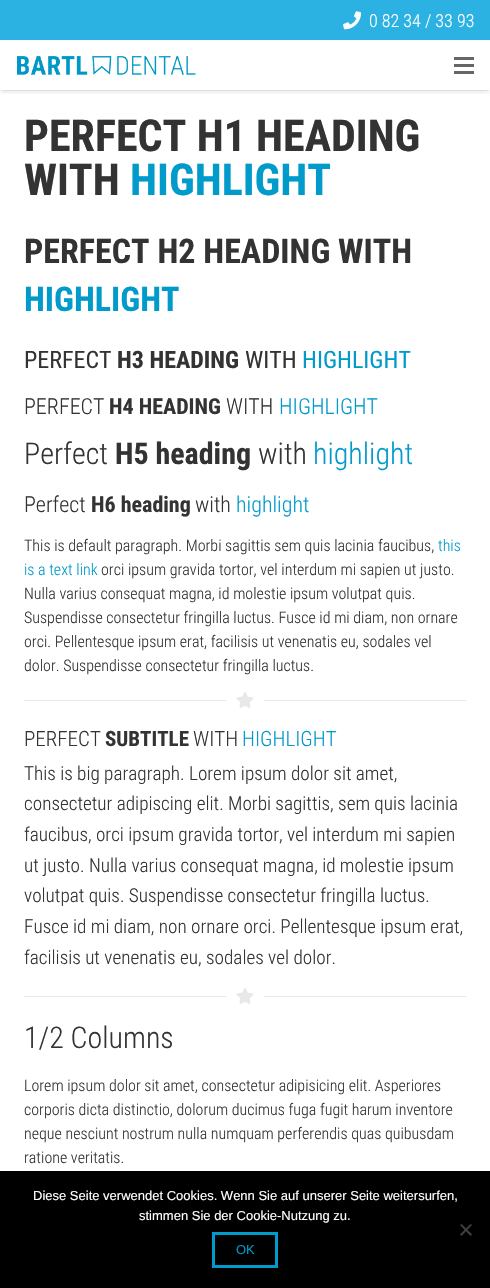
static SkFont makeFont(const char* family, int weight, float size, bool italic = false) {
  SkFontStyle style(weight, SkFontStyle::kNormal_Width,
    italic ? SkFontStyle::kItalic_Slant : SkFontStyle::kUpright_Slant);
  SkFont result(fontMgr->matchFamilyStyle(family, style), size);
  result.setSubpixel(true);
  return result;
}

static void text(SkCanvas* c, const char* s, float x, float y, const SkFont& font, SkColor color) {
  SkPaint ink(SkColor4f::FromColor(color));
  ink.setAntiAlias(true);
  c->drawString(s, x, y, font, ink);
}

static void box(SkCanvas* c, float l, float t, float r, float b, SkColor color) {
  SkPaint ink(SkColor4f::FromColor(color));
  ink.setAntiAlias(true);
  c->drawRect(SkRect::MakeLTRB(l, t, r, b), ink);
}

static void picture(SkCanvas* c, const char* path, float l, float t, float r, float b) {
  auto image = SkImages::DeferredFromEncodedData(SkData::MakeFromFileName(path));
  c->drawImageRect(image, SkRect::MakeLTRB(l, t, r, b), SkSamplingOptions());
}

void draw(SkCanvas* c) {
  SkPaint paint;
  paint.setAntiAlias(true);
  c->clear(0xffffffff);
  box(c, 0, 0, 490, 40, 0xff2bb2e3);
  picture(c, "img_01.png", 343, 11, 361, 30);
  SkFont face1 = makeFont("Roboto Condensed", 300, 18);
  text(c, "0 82 34 / 33 93", 369, 27, face1, 0xffffffff);
  c->save();
  c->clipRect(SkRect::MakeLTRB(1, 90, 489, 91));
  paint.setColor(0x0d000000);
  paint.setMaskFilter(SkMaskFilter::MakeBlur(kNormal_SkBlurStyle, 0.5f));
  c->drawRect(SkRect::MakeLTRB(1, 43, 489, 91), paint);
  paint.setMaskFilter(nullptr);
  c->restore();
  c->save();
  c->clipRect(SkRect::MakeLTRB(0, 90, 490, 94));
  paint.setColor(0x1a000000);
  paint.setMaskFilter(SkMaskFilter::MakeBlur(kNormal_SkBlurStyle, 2.5f));
  c->drawRect(SkRect::MakeLTRB(1, 44, 489, 92), paint);
  paint.setMaskFilter(nullptr);
  c->restore();
  picture(c, "img_02.png", 17, 56, 196, 75);
  box(c, 454, 64, 474, 67, 0xff666666);
  box(c, 454, 57, 474, 60, 0xff666666);
  box(c, 454, 71, 474, 74, 0xff666666);
  SkFont face2 = makeFont("Roboto Condensed", 700, 44);
  text(c, "PERFECT H1 HEADING", 24, 151, face2, 0xff333333);
  text(c, "WITH", 24, 195, face2, 0xff333333);
  text(c, "HIGHLIGHT", 130, 195, face2, 0xff009acb);
  SkFont face3 = makeFont("Roboto Condensed", 700, 34);
  text(c, "PERFECT H2 HEADING WITH", 24, 263, face3, 0xff333333);
  text(c, "HIGHLIGHT", 24, 311, face3, 0xff009acb);
  SkFont face4 = makeFont("Roboto Condensed", 400, 24);
  text(c, "PERFECT", 24, 368, face4, 0xff333333);
  SkFont face5 = makeFont("Roboto Condensed", 700, 24);
  text(c, "H3 HEADING", 117, 368, face5, 0xff333333);
  text(c, "WITH", 245, 368, face4, 0xff333333);
  text(c, "HIGHLIGHT", 302, 368, face4, 0xff009acb);
  SkFont face6 = makeFont("Roboto Condensed", 300, 22);
  text(c, "PERFECT", 24, 414, face6, 0xff333333);
  SkFont face7 = makeFont("Roboto Condensed", 700, 22);
  text(c, "H4 HEADING", 109, 414, face7, 0xff333333);
  text(c, "WITH", 226, 414, face6, 0xff333333);
  text(c, "HIGHLIGHT", 279, 414, face6, 0xff009acb);
  SkFont face8 = makeFont("Roboto Condensed", 300, 30);
  text(c, "Perfect", 24, 464, face8, 0xff333333);
  SkFont face9 = makeFont("Roboto Condensed", 700, 30);
  text(c, "H5 heading", 115, 464, face9, 0xff333333);
  text(c, "with", 258, 464, face8, 0xff333333);
  text(c, "highlight", 313, 464, face8, 0xff009acb);
  text(c, "Perfect", 24, 512, face6, 0xff333333);
  text(c, "H6 heading", 91, 512, face7, 0xff333333);
  text(c, "with", 195, 512, face6, 0xff333333);
  text(c, "highlight", 236, 512, face6, 0xff009acb);
  SkFont face10 = makeFont("Roboto Condensed", 300, 16);
  text(c, "This is default paragraph. Morbi sagittis sem quis lacinia faucibus,", 24, 551, face10, 0xff333333);
  text(c, "this", 438, 551, face10, 0xff009acb);
  text(c, "is a text link", 24, 575, face10, 0xff009acb);
  text(c, "orci ipsum gravida tortor, vel interdum mi sapien ut justo.", 101, 575, face10, 0xff333333);
  text(c, "Nulla varius consequat magna, id molestie ipsum volutpat quis.", 24, 599, face10, 0xff333333);
  text(c, "Suspendisse consectetur fringilla luctus. Fusce id mi diam, non ornare", 24, 623, face10, 0xff333333);
  text(c, "orci. Pellentesque ipsum erat, facilisis ut venenatis eu, sodales vel", 24, 647, face10, 0xff333333);
  text(c, "dolor. Suspendisse consectetur fringilla luctus.", 24, 671, face10, 0xff333333);
  box(c, 24, 700, 226, 701, 0xffe8e8e8);
  picture(c, "img_03.png", 236, 692, 254, 708);
  box(c, 264, 700, 466, 701, 0xffe8e8e8);
  SkFont face11 = makeFont("Roboto Condensed", 300, 21);
  text(c, "PERFECT", 24, 746, face11, 0xff333333);
  SkFont face12 = makeFont("Roboto Condensed", 700, 21);
  text(c, "SUBTITLE", 105, 746, face12, 0xff333333);
  text(c, "WITH", 193, 746, face11, 0xff333333);
  text(c, "HIGHLIGHT", 242, 746, face11, 0xff009acb);
  SkFont face13 = makeFont("Roboto Condensed", 300, 19.2f);
  text(c, "This is big paragraph. Lorem ipsum dolor sit amet,", 24, 780, face13, 0xff333333);
  text(c, "consectetur adipiscing elit. Morbi sagittis, sem quis lacinia", 24, 810, face13, 0xff333333);
  text(c, "faucibus, orci ipsum gravida tortor, vel interdum mi sapien", 24, 841, face13, 0xff333333);
  text(c, "ut justo. Nulla varius consequat magna, id molestie ipsum", 24, 872, face13, 0xff333333);
  text(c, "volutpat quis. Suspendisse consectetur fringilla luctus.", 24, 902, face13, 0xff333333);
  text(c, "Fusce id mi diam, non ornare orci. Pellentesque ipsum erat,", 24, 933, face13, 0xff333333);
  text(c, "facilisis ut venenatis eu, sodales vel dolor.", 24, 964, face13, 0xff333333);
  box(c, 24, 996, 226, 997, 0xffe8e8e8);
  picture(c, "img_03.png", 236, 988, 254, 1004);
  box(c, 264, 996, 466, 997, 0xffe8e8e8);
  text(c, "1/2 Columns", 24, 1048, face8, 0xff333333);
  text(c, "Lorem ipsum dolor sit amet, consectetur adipisicing elit. Asperiores", 24, 1091, face10, 0xff333333);
  text(c, "corporis dicta distinctio, dolorum ducimus fuga fugit harum inventore", 24, 1115, face10, 0xff333333);
  text(c, "neque nesciunt nostrum nulla numquam perferendis quas quibusdam", 24, 1139, face10, 0xff333333);
  text(c, "ratione veritatis.", 24, 1163, face10, 0xff333333);
  box(c, 0, 1171, 490, 1288, 0xff000000);
  SkFont face14 = makeFont("Liberation Sans", 400, 13);
  text(c, "Diese Seite verwendet Cookies. Wenn Sie auf unserer Seite weitersurfen,", 33, 1200, face14, 0xffffffff);
  text(c, "stimmen Sie der Cookie-Nutzung zu.", 139, 1220, face14, 0xffffffff);
  paint.setColor(0xff404040);
  c->drawPath(SkPathBuilder().moveTo(470.5f, 1224).lineTo(472, 1225).lineTo(461.5f, 1236).lineTo(460, 1234.5f).close().detach(), paint);
  c->drawPath(SkPathBuilder().moveTo(460, 1225).lineTo(461.5f, 1224).lineTo(472, 1234.5f).lineTo(470.5f, 1236).close().detach(), paint);
  paint.setStyle(SkPaint::kStroke_Style);
  paint.setStrokeWidth(3);
  paint.setColor(0xff009acb);
  c->drawRect(SkRect::MakeLTRB(213.5f, 1233.5f, 276.5f, 1266.5f), paint);
  text(c, "OK", 236, 1254, face14, 0xff009acb);
}
